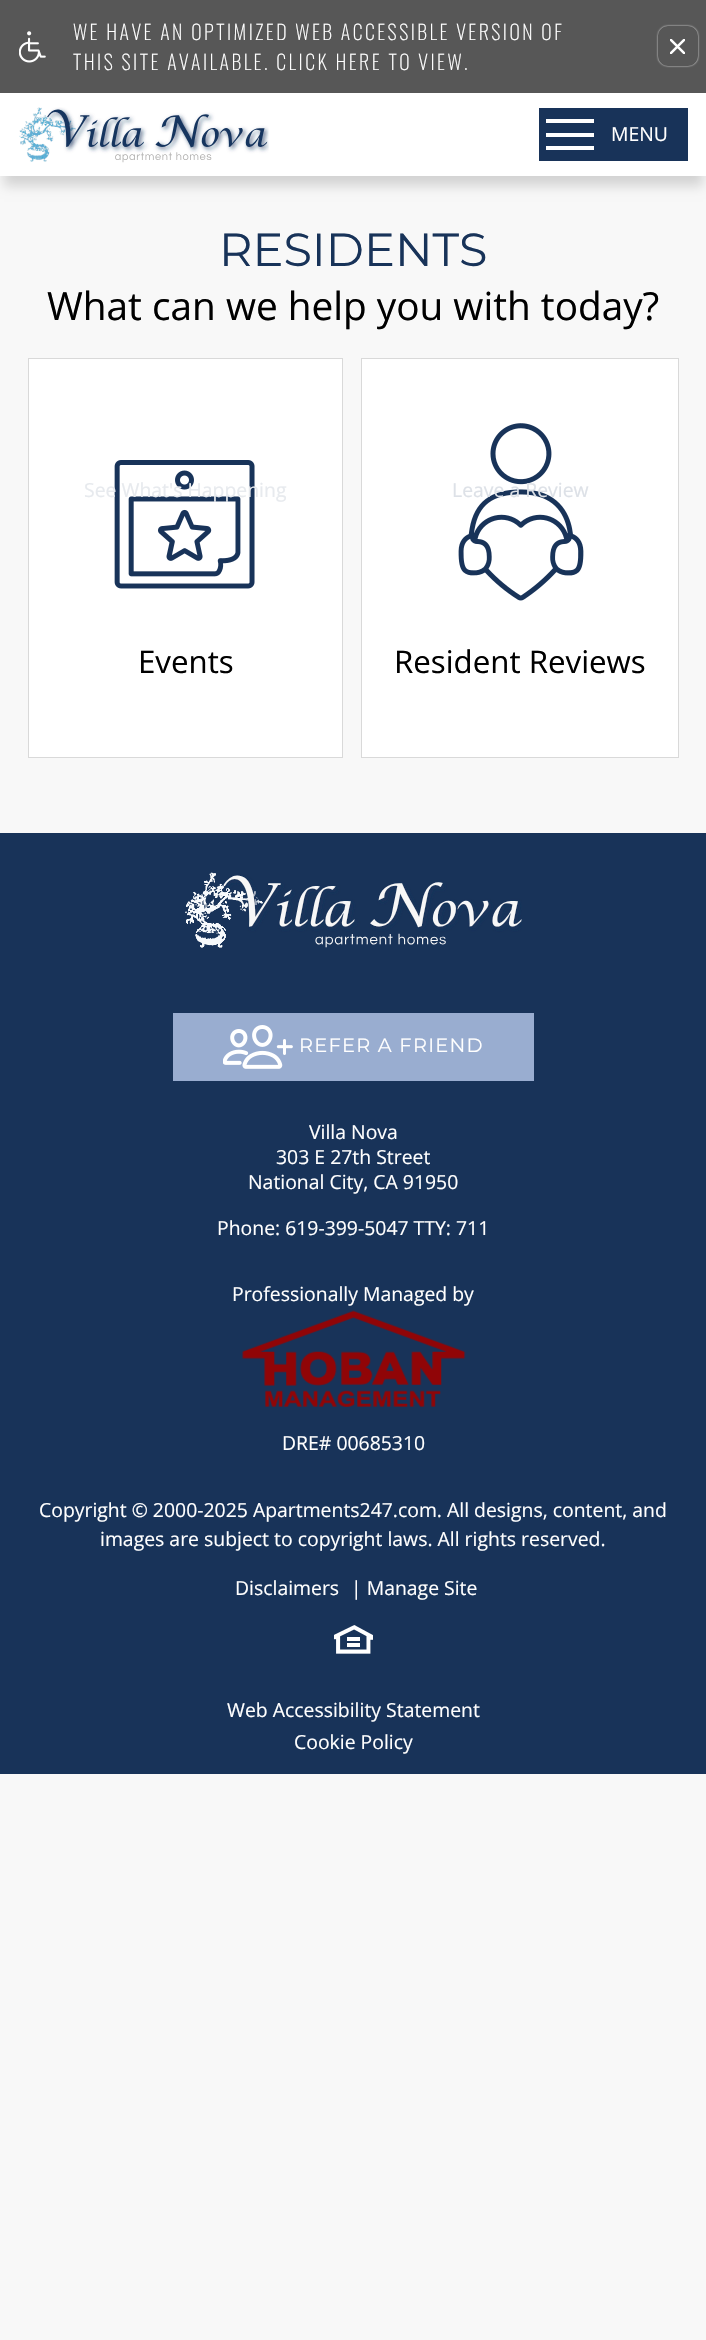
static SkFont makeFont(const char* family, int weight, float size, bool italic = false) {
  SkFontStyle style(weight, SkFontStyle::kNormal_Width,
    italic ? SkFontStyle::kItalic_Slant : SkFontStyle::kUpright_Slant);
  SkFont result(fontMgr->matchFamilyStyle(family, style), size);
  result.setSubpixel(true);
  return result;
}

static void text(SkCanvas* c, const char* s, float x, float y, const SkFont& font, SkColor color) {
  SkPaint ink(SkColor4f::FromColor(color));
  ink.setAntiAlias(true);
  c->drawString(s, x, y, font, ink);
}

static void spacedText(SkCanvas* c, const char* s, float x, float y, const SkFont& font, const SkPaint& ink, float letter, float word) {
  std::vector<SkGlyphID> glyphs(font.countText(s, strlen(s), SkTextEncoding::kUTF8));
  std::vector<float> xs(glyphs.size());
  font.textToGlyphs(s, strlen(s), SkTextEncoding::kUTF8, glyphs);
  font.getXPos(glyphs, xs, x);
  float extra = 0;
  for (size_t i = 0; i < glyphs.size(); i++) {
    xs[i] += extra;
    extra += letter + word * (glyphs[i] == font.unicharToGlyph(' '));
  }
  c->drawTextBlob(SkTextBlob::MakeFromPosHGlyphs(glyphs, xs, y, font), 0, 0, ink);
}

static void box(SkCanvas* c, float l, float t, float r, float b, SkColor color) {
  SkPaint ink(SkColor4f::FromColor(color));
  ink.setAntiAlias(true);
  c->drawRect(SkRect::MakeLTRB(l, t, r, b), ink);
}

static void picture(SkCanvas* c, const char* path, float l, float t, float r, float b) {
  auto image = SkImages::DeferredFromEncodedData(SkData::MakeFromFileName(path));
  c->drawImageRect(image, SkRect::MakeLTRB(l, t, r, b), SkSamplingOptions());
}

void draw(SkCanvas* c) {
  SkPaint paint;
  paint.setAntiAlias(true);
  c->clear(0xfff8f8f8);
  box(c, 0, 0, 706, 93, 0xff575757);
  picture(c, "img_01.png", 19, 31, 46, 63);
  SkFont face1 = makeFont("Oswald", 200, 20);
  paint.setColor(0xffffffff);
  spacedText(c, "WE HAVE AN OPTIMIZED WEB ACCESSIBLE VERSION OF", 73, 40, face1, paint, 2.5f, 0);
  spacedText(c, "THIS SITE AVAILABLE. CLICK HERE TO VIEW.", 73, 70, face1, paint, 2.5f, 0);
  c->save();
  c->clipPath(SkPathBuilder(SkPathFillType::kEvenOdd).moveTo(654, 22).lineTo(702, 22).lineTo(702, 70).lineTo(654, 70).close().moveTo(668, 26).lineTo(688, 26).cubicTo(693.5f, 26, 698, 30.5f, 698, 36).lineTo(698, 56).cubicTo(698, 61.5f, 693.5f, 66, 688, 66).lineTo(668, 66).cubicTo(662.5f, 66, 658, 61.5f, 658, 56).lineTo(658, 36).cubicTo(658, 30.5f, 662.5f, 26, 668, 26).close().detach(), true);
  paint.setMaskFilter(SkMaskFilter::MakeBlur(kNormal_SkBlurStyle, 1));
  c->drawRoundRect(SkRect::MakeLTRB(658, 26, 698, 66), 10, 10, paint);
  paint.setMaskFilter(nullptr);
  c->restore();
  c->save();
  c->clipRect(SkRect::MakeLTRB(670, 39, 685, 54));
  paint.setStyle(SkPaint::kStroke_Style);
  paint.setStrokeWidth(2.5f);
  c->drawPath(SkPathBuilder().moveTo(670, 54).lineTo(685, 39).moveTo(670, 39).lineTo(685, 54).detach(), paint);
  c->restore();
  paint.setStyle(SkPaint::kFill_Style);
  paint.setColor(0x26000000);
  paint.setMaskFilter(SkMaskFilter::MakeBlur(kNormal_SkBlurStyle, 5.5f));
  c->drawRect(SkRect::MakeLTRB(4, 110, 703, 186), paint);
  paint.setMaskFilter(nullptr);
  box(c, 0, 93, 706, 176, 0xffffffff);
  picture(c, "img_02.png", 19, 107, 269, 163);
  box(c, 539, 108, 688, 161, 0xff183359);
  box(c, 546, 119, 594, 123, 0xffffffff);
  box(c, 546, 133, 594, 137, 0xffffffff);
  box(c, 546, 146, 594, 150, 0xffffffff);
  SkFont face2 = makeFont("Open Sans", 400, 19.4f);
  text(c, "MENU", 611, 141, face2, 0xffffffff);
  SkFont face3 = makeFont("Montserrat", 100, 46.25f);
  text(c, "RESIDENTS", 219, 266, face3, 0xff183359);
  SkFont face4 = makeFont("Open Sans", 400, 38.75f);
  text(c, "What can we help you with today?", 47, 320, face4, 0xff000000);
  paint.setColor(0xffffffff);
  c->drawRect(SkRect::MakeLTRB(28.5f, 358.5f, 342.5f, 757.5f), paint);
  paint.setStyle(SkPaint::kStroke_Style);
  paint.setStrokeWidth(1);
  paint.setColor(0xffd9d9d9);
  c->drawRect(SkRect::MakeLTRB(28.5f, 358.5f, 342.5f, 757.5f), paint);
  picture(c, "img_03.png", 114, 460, 255, 589);
  text(c, "See What's Happening", 84, 497, face2, 0xffe7eaee);
  SkFont face5 = makeFont("Open Sans", 400, 31.25f);
  text(c, "Events", 138, 673, face5, 0xff000000);
  paint.setStyle(SkPaint::kFill_Style);
  paint.setColor(0xffffffff);
  c->drawRect(SkRect::MakeLTRB(361.5f, 358.5f, 678.5f, 757.5f), paint);
  paint.setStyle(SkPaint::kStroke_Style);
  paint.setColor(0xffd9d9d9);
  c->drawRect(SkRect::MakeLTRB(361.5f, 358.5f, 678.5f, 757.5f), paint);
  picture(c, "img_04.png", 458, 423, 584, 601);
  text(c, "Leave a Review", 452, 497, face2, 0xffdde1e7);
  text(c, "Resident Reviews", 394, 673, face5, 0xff000000);
  box(c, 0, 833, 706, 1774, 0xff183359);
  picture(c, "img_05.png", 185, 872, 522, 948);
  box(c, 173, 1013, 534, 1081, 0xff99add0);
  picture(c, "img_06.png", 223, 1025, 293, 1069);
  SkFont face6 = makeFont("Montserrat", 100, 19.4f);
  paint.setStyle(SkPaint::kFill_Style);
  paint.setColor(0xffffffff);
  spacedText(c, "REFER A FRIEND", 299, 1052, face6, paint, 1.25f, 0);
  text(c, "Villa Nova", 309, 1139, face2, 0xffffffff);
  text(c, "303 E 27th Street", 276, 1164, face2, 0xffffffff);
  text(c, "National City, CA 91950", 248, 1189, face2, 0xffffffff);
  text(c, "Phone: 619-399-5047 TTY: 711", 217, 1235, face2, 0xffffffff);
  text(c, "Professionally Managed by", 232, 1301, face2, 0xffffffff);
  picture(c, "img_07.png", 242, 1310, 466, 1407);
  text(c, "DRE# 00685310", 282, 1450, face2, 0xffffffff);
  text(c, "Copyright © 2000-2025 Apartments247.com. All designs, content, and", 39, 1517, face2, 0xffffffff);
  text(c, "images are subject to copyright laws. All rights reserved.", 100, 1546, face2, 0xffffffff);
  text(c, "Disclaimers", 235, 1595, face2, 0xffffffff);
  text(c, "| Manage Site", 351, 1595, face2, 0xffffffff);
  picture(c, "img_08.png", 334, 1625, 373, 1654);
  text(c, "Web Accessibility Statement", 227, 1717, face2, 0xffffffff);
  text(c, "Cookie Policy", 294, 1749, face2, 0xffffffff);
}
